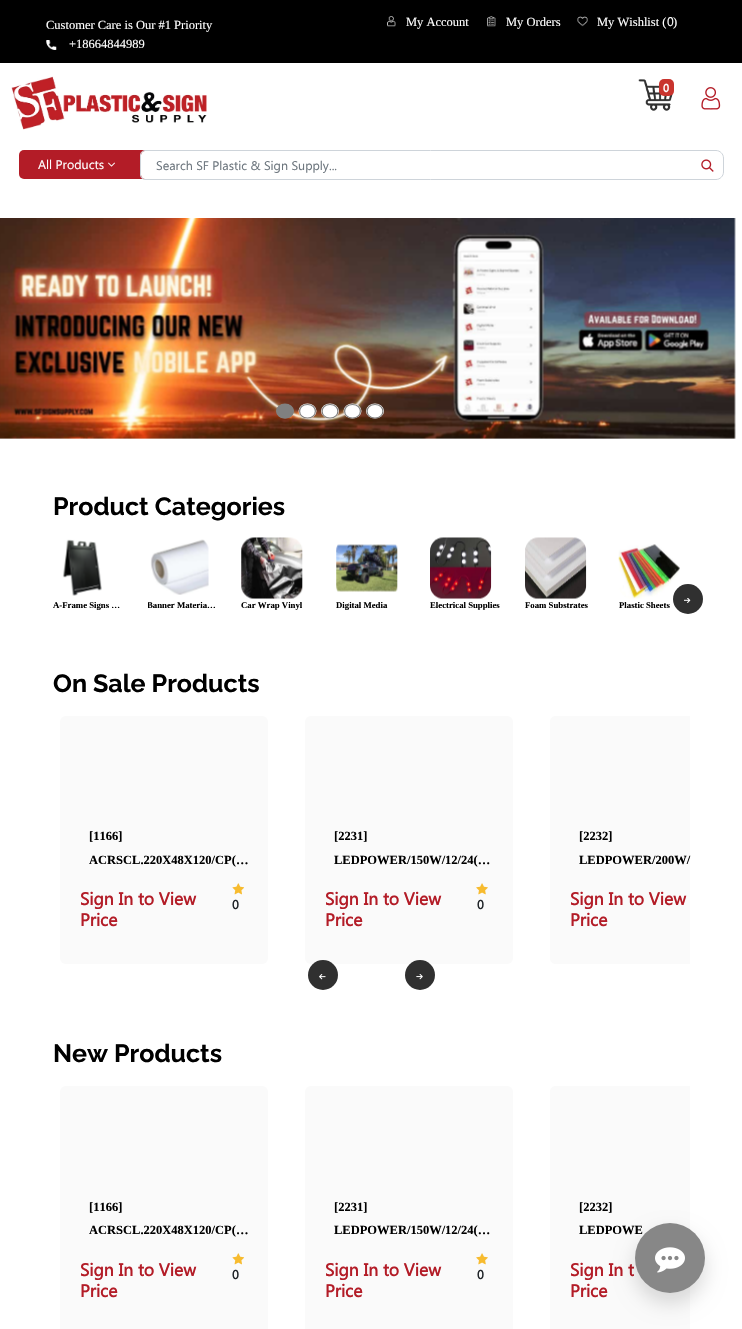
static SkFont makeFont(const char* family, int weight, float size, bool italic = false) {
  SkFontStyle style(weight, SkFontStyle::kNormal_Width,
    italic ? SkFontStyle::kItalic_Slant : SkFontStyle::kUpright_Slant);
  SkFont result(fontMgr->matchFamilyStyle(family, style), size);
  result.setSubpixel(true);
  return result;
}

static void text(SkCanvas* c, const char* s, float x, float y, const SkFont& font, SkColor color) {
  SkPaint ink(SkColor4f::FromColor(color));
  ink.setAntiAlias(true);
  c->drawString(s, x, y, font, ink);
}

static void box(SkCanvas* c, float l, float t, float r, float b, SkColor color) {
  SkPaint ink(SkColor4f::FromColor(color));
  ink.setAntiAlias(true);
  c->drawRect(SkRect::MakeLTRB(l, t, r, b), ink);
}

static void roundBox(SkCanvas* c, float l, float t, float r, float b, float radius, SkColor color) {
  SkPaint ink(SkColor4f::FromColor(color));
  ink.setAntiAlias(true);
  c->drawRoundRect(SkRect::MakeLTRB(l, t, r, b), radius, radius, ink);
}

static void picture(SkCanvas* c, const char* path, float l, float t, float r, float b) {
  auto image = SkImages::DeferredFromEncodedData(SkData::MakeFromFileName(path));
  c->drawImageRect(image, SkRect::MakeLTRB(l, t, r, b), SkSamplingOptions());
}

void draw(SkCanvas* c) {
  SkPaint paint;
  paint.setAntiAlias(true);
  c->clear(0xffffffff);
  box(c, 0, 0, 742, 63, 0xff000000);
  SkFont face1 = makeFont("Liberation Serif", 400, 12.5f);
  text(c, "Customer Care is Our #1 Priority", 46, 29, face1, 0xffffffff);
  picture(c, "img_01.png", 46, 40, 57, 50);
  text(c, "+18664844989", 69, 48, face1, 0xffffffff);
  picture(c, "img_02.png", 387, 16, 396, 27);
  text(c, "My Account", 406, 26, face1, 0xffffffff);
  picture(c, "img_03.png", 487, 16, 496, 27);
  text(c, "My Orders", 506, 26, face1, 0xffffffff);
  picture(c, "img_04.png", 577, 16, 588, 27);
  text(c, "My Wishlist (", 597, 26, face1, 0xffffffff);
  SkFont face2 = makeFont("Segoe UI", 400, 12.5f);
  text(c, "0", 667, 26, face2, 0xffffffff);
  text(c, ")", 673, 26, face1, 0xffffffff);
  picture(c, "img_05.png", 11, 76, 207, 130);
  picture(c, "img_06.png", 638, 79, 673, 111);
  roundBox(c, 659, 79, 674, 96, 5, 0xffc9342e);
  SkFont face3 = makeFont("Segoe UI", 700, 11);
  text(c, "0", 663, 92, face3, 0xffffffff);
  picture(c, "img_07.png", 701, 87, 721, 110);
  roundBox(c, 19, 150, 156, 179, 5, 0xffb31c27);
  text(c, "All Products", 38, 169, face2, 0xffffffff);
  picture(c, "img_08.png", 108, 162, 115, 167);
  paint.setColor(0xffffffff);
  c->drawPath(SkPathBuilder().moveTo(145, 151).lineTo(717, 151).cubicTo(720.5f, 151, 723, 153.5f, 723, 157).lineTo(723, 173).cubicTo(723, 176.5f, 720.5f, 179, 717, 179).lineTo(145, 179).cubicTo(143, 179, 141, 177, 141, 175).lineTo(141, 155).cubicTo(141, 153, 143, 151, 145, 151).close().detach(), paint);
  paint.setStyle(SkPaint::kStroke_Style);
  paint.setStrokeWidth(1);
  paint.setColor(0xffced4da);
  c->drawPath(SkPathBuilder().moveTo(145, 150.5f).lineTo(716, 150.5f).cubicTo(720, 150.5f, 723.5f, 154, 723.5f, 158).lineTo(723.5f, 172).cubicTo(723.5f, 176, 720, 179.5f, 716, 179.5f).lineTo(145, 179.5f).cubicTo(142.5f, 179.5f, 140.5f, 177.5f, 140.5f, 175).lineTo(140.5f, 155).cubicTo(140.5f, 152.5f, 142.5f, 150.5f, 145, 150.5f).close().detach(), paint);
  text(c, "Search SF Plastic & Sign Supply...", 156, 170, face2, 0xff6c757d);
  picture(c, "img_09.png", 701, 159, 714, 172);
  picture(c, "img_10.png", 0, 218, 736, 439);
  paint.setStyle(SkPaint::kFill_Style);
  paint.setColor(0xff808080);
  c->drawOval(SkRect::MakeLTRB(276, 403.5f, 294, 418.5f), paint);
  paint.setStyle(SkPaint::kStroke_Style);
  paint.setStrokeWidth(1.2f);
  c->drawPath(SkPathBuilder().moveTo(285, 404.5f).cubicTo(295.5f, 404.5f, 295.5f, 418, 285, 418).cubicTo(274.5f, 418, 274.5f, 404.5f, 285, 404.5f).close().detach(), paint);
  paint.setStyle(SkPaint::kFill_Style);
  paint.setColor(0xffffffff);
  c->drawOval(SkRect::MakeLTRB(298.5f, 403.5f, 316.5f, 418.5f), paint);
  paint.setStyle(SkPaint::kStroke_Style);
  paint.setColor(0xff808080);
  c->drawPath(SkPathBuilder().moveTo(307.5f, 404.5f).cubicTo(318, 404.5f, 318, 418, 307.5f, 418).cubicTo(297, 418, 297, 404.5f, 307.5f, 404.5f).close().detach(), paint);
  paint.setStyle(SkPaint::kFill_Style);
  paint.setColor(0xffffffff);
  c->drawOval(SkRect::MakeLTRB(321, 403.5f, 339, 418.5f), paint);
  paint.setStyle(SkPaint::kStroke_Style);
  paint.setColor(0xff808080);
  c->drawPath(SkPathBuilder().moveTo(330, 404.5f).cubicTo(340.5f, 404.5f, 340.5f, 418, 330, 418).cubicTo(319.5f, 418, 319.5f, 404.5f, 330, 404.5f).close().detach(), paint);
  paint.setStyle(SkPaint::kFill_Style);
  paint.setColor(0xffffffff);
  c->drawOval(SkRect::MakeLTRB(343.5f, 403.5f, 361.5f, 418.5f), paint);
  paint.setStyle(SkPaint::kStroke_Style);
  paint.setColor(0xff808080);
  c->drawPath(SkPathBuilder().moveTo(352.5f, 404.5f).cubicTo(363, 404.5f, 363, 418, 352.5f, 418).cubicTo(342, 418, 342, 404.5f, 352.5f, 404.5f).close().detach(), paint);
  paint.setStyle(SkPaint::kFill_Style);
  paint.setColor(0xffffffff);
  c->drawOval(SkRect::MakeLTRB(366, 403.5f, 384, 418.5f), paint);
  paint.setStyle(SkPaint::kStroke_Style);
  paint.setColor(0xff808080);
  c->drawPath(SkPathBuilder().moveTo(375, 404.5f).cubicTo(385.5f, 404.5f, 385.5f, 418, 375, 418).cubicTo(364.5f, 418, 364.5f, 404.5f, 375, 404.5f).close().detach(), paint);
  SkFont face4 = makeFont("Raleway", 700, 25);
  text(c, "Product Categories", 53, 515, face4, 0xff000000);
  picture(c, "img_11.png", 62, 539, 102, 596);
  SkFont face5 = makeFont("Liberation Serif", 700, 8.75f);
  text(c, "A-Frame Signs …", 53, 608, face5, 0xff000000);
  picture(c, "img_12.png", 150, 539, 209, 595);
  c->save();
  c->clipRect(SkRect::MakeLTRB(148, 599, 218, 611));
  text(c, "Banner Materia…", 147, 608, face5, 0xff000000);
  c->restore();
  picture(c, "img_13.png", 241, 537, 303, 599);
  text(c, "Car Wrap Vinyl", 241, 608, face5, 0xff000000);
  picture(c, "img_14.png", 336, 544, 398, 592);
  text(c, "Digital Media", 336, 608, face5, 0xff000000);
  picture(c, "img_15.png", 430, 537, 492, 599);
  text(c, "Electrical Supplies", 430, 608, face5, 0xff000000);
  picture(c, "img_16.png", 525, 537, 587, 599);
  text(c, "Foam Substrates", 525, 608, face5, 0xff000000);
  picture(c, "img_17.png", 618, 544, 680, 599);
  text(c, "Plastic Sheets", 619, 608, face5, 0xff000000);
  paint.setStyle(SkPaint::kFill_Style);
  paint.setColor(0xff303030);
  c->drawCircle(688, 599, 15, paint);
  picture(c, "img_18.png", 684, 598, 691, 603);
  text(c, "On Sale Products", 53, 692, face4, 0xff000000);
  roundBox(c, 60, 716, 268, 964, 6, 0xfffafafa);
  SkFont face6 = makeFont("Liberation Serif", 700, 12.5f);
  text(c, "[1166]", 89, 840, face6, 0xff000000);
  text(c, "ACRSCL.220X48X120/CP(…", 89, 864, face6, 0xff000000);
  SkFont face7 = makeFont("Segoe UI", 700, 17.5f);
  text(c, "Sign In to View", 80, 905, face7, 0xffb31c27);
  text(c, "Price", 80, 926, face7, 0xffb31c27);
  picture(c, "img_19.png", 232, 883, 245, 895);
  SkFont face8 = makeFont("Segoe UI", 700, 12.5f);
  text(c, "0", 232, 909, face8, 0xff212529);
  roundBox(c, 305, 716, 513, 964, 6, 0xfffafafa);
  text(c, "[2231]", 334, 840, face6, 0xff000000);
  text(c, "LEDPOWER/150W/12/24(…", 334, 864, face6, 0xff000000);
  text(c, "Sign In to View", 325, 905, face7, 0xffb31c27);
  text(c, "Price", 325, 926, face7, 0xffb31c27);
  picture(c, "img_20.png", 476, 883, 488, 895);
  text(c, "0", 477, 909, face8, 0xff212529);
  paint.setColor(0xfffafafa);
  c->drawPath(SkPathBuilder().moveTo(556, 716).lineTo(690, 716).lineTo(690, 964).lineTo(556, 964).cubicTo(552.5f, 964, 550, 961.5f, 550, 958).lineTo(550, 722).cubicTo(550, 718.5f, 552.5f, 716, 556, 716).close().detach(), paint);
  text(c, "[2232]", 579, 840, face6, 0xff000000);
  text(c, "LEDPOWER/200W/", 579, 864, face6, 0xff000000);
  text(c, "Sign In to View", 570, 905, face7, 0xffb31c27);
  text(c, "Price", 570, 926, face7, 0xffb31c27);
  paint.setColor(0xff303030);
  c->drawCircle(323, 975, 15, paint);
  picture(c, "img_21.png", 319, 974, 326, 980);
  c->drawCircle(420, 975, 15, paint);
  picture(c, "img_22.png", 416, 974, 423, 980);
  text(c, "New Products", 53, 1062, face4, 0xff000000);
  roundBox(c, 60, 1086, 268, 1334, 6, 0xfffafafa);
  text(c, "[1166]", 89, 1211, face6, 0xff000000);
  text(c, "ACRSCL.220X48X120/CP(…", 89, 1234, face6, 0xff000000);
  text(c, "Sign In to View", 80, 1276, face7, 0xffb31c27);
  text(c, "Price", 80, 1297, face7, 0xffb31c27);
  picture(c, "img_19.png", 232, 1253, 245, 1265);
  text(c, "0", 232, 1279, face8, 0xff212529);
  roundBox(c, 305, 1086, 513, 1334, 6, 0xfffafafa);
  text(c, "[2231]", 334, 1211, face6, 0xff000000);
  text(c, "LEDPOWER/150W/12/24(…", 334, 1234, face6, 0xff000000);
  text(c, "Sign In to View", 325, 1276, face7, 0xffb31c27);
  text(c, "Price", 325, 1297, face7, 0xffb31c27);
  picture(c, "img_20.png", 476, 1253, 488, 1265);
  text(c, "0", 477, 1279, face8, 0xff212529);
  paint.setColor(0xfffafafa);
  c->drawPath(SkPathBuilder().moveTo(556, 1086).lineTo(690, 1086).lineTo(690, 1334).lineTo(556, 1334).cubicTo(552.5f, 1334, 550, 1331.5f, 550, 1328).lineTo(550, 1092).cubicTo(550, 1088.5f, 552.5f, 1086, 556, 1086).close().detach(), paint);
  text(c, "[2232]", 579, 1211, face6, 0xff000000);
  text(c, "LEDPOWE", 579, 1234, face6, 0xff000000);
  text(c, "Sign In t", 570, 1276, face7, 0xffb31c27);
  text(c, "Price", 570, 1297, face7, 0xffb31c27);
  paint.setColor(0x26000000);
  paint.setMaskFilter(SkMaskFilter::MakeBlur(kNormal_SkBlurStyle, 10));
  c->drawRoundRect(SkRect::MakeLTRB(635, 1233, 705, 1303), 35, 35, paint);
  paint.setMaskFilter(nullptr);
  paint.setColor(0xff878787);
  c->drawCircle(670, 1258, 35, paint);
  picture(c, "img_23.png", 655, 1247, 685, 1273);
}
